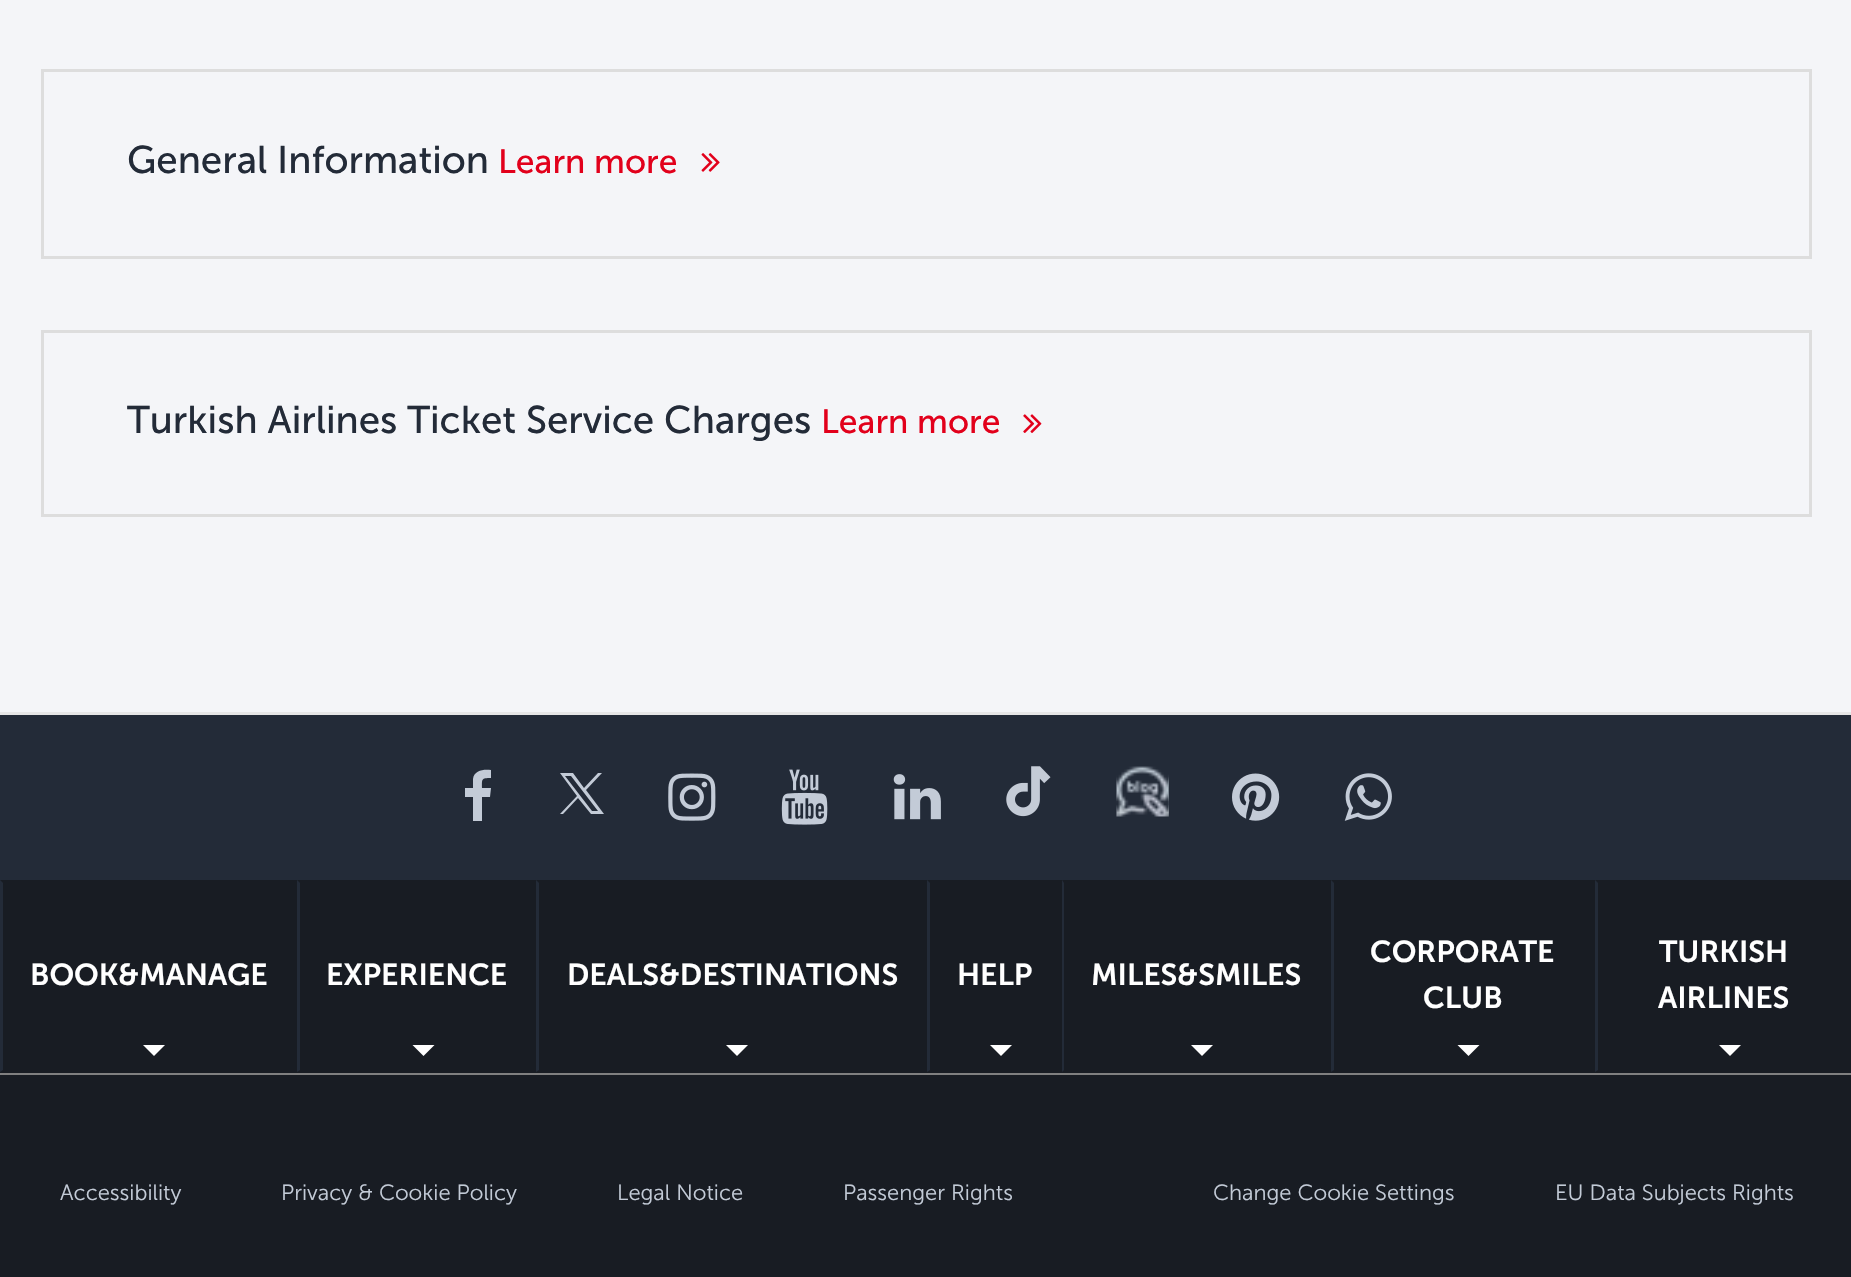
static SkFont makeFont(const char* family, int weight, float size, bool italic = false) {
  SkFontStyle style(weight, SkFontStyle::kNormal_Width,
    italic ? SkFontStyle::kItalic_Slant : SkFontStyle::kUpright_Slant);
  SkFont result(fontMgr->matchFamilyStyle(family, style), size);
  result.setSubpixel(true);
  return result;
}

static void text(SkCanvas* c, const char* s, float x, float y, const SkFont& font, SkColor color) {
  SkPaint ink(SkColor4f::FromColor(color));
  ink.setAntiAlias(true);
  c->drawString(s, x, y, font, ink);
}

static void box(SkCanvas* c, float l, float t, float r, float b, SkColor color) {
  SkPaint ink(SkColor4f::FromColor(color));
  ink.setAntiAlias(true);
  c->drawRect(SkRect::MakeLTRB(l, t, r, b), ink);
}

static void picture(SkCanvas* c, const char* path, float l, float t, float r, float b) {
  auto image = SkImages::DeferredFromEncodedData(SkData::MakeFromFileName(path));
  c->drawImageRect(image, SkRect::MakeLTRB(l, t, r, b), SkSamplingOptions());
}

void draw(SkCanvas* c) {
  SkPaint paint;
  paint.setAntiAlias(true);
  c->clear(0xfff4f5f8);
  paint.setStyle(SkPaint::kStroke_Style);
  paint.setStrokeWidth(3);
  paint.setColor(0xffdddddd);
  c->drawRect(SkRect::MakeLTRB(42.5f, 70.5f, 1810.5f, 257.5f), paint);
  SkFont face1 = makeFont("Museo Sans", 400, 38.5f);
  text(c, "General Information", 127, 173, face1, 0xff232b38);
  SkFont face2 = makeFont("Museo Sans", 400, 33.75f);
  text(c, "Learn more", 498, 173, face2, 0xffe2001b);
  picture(c, "img_01.png", 701, 153, 720, 172);
  c->drawRect(SkRect::MakeLTRB(42.5f, 331.5f, 1810.5f, 515.5f), paint);
  text(c, "Turkish Airlines Ticket Service Charges", 127, 433, face1, 0xff232b38);
  text(c, "Learn more", 821, 433, face2, 0xffe2001b);
  picture(c, "img_02.png", 1023, 414, 1042, 433);
  box(c, 0, 715, 1851, 880, 0xff232b38);
  box(c, 0, 712, 1851, 715, 0xffe6e6e6);
  paint.setStyle(SkPaint::kFill_Style);
  paint.setColor(0xffc3cbd7);
  c->drawPath(SkPathBuilder().moveTo(491, 770).lineTo(491, 778).cubicTo(481, 778, 482, 779, 482, 788).lineTo(491, 788).lineTo(490, 797).lineTo(482, 797).lineTo(482, 821).lineTo(473, 821).lineTo(473, 797).lineTo(465, 797).lineTo(465, 788).lineTo(473, 788).lineTo(473, 779).cubicTo(474, 770, 484, 769, 491, 770).close().detach(), paint);
  c->drawPath(SkPathBuilder().moveTo(560, 773).lineTo(577, 796).lineTo(560, 814).lineTo(563, 814).lineTo(578, 798).lineTo(591, 814).lineTo(604, 814).lineTo(586, 790).lineTo(602, 773).lineTo(598, 773).lineTo(584, 788).lineTo(573, 773).close().moveTo(565, 776).lineTo(571, 776).lineTo(598, 811).lineTo(592, 811).close().detach(), paint);
  picture(c, "img_03.png", 668, 773, 716, 821);
  picture(c, "img_04.png", 781, 769, 828, 825);
  picture(c, "img_05.png", 893, 774, 941, 820);
  picture(c, "img_06.png", 1006, 766, 1051, 817);
  picture(c, "img_07.png", 1116, 766, 1169, 817);
  picture(c, "img_08.png", 1232, 773, 1280, 821);
  picture(c, "img_09.png", 1344, 773, 1392, 821);
  box(c, 0, 880, 1851, 1073, 0xff181c23);
  box(c, 0, 1073, 1851, 1075, 0xff808080);
  paint.setColor(0xff232b38);
  c->drawPath(SkPathBuilder().moveTo(0, 1072).lineTo(0, 880).lineTo(3, 883).lineTo(3, 1070).close().detach(), paint);
  SkFont face3 = makeFont("Museo Sans", 600, 30.25f);
  text(c, "BOOK&MANAGE", 30, 985, face3, 0xffffffff);
  paint.setColor(0xffffffff);
  c->drawPath(SkPathBuilder().moveTo(143, 1045).lineTo(165, 1045).lineTo(154, 1056).close().detach(), paint);
  paint.setColor(0xff232b38);
  c->drawPath(SkPathBuilder().moveTo(297, 1072).lineTo(297, 880).lineTo(300, 883).lineTo(300, 1070).close().detach(), paint);
  text(c, "EXPERIENCE", 326, 985, face3, 0xffffffff);
  paint.setColor(0xffffffff);
  c->drawPath(SkPathBuilder().moveTo(412.5f, 1045).lineTo(434.5f, 1045).lineTo(423.5f, 1056).close().detach(), paint);
  paint.setColor(0xff232b38);
  c->drawPath(SkPathBuilder().moveTo(536, 1072).lineTo(536, 880).lineTo(539, 883).lineTo(539, 1070).close().detach(), paint);
  text(c, "DEALS&DESTINATIONS", 567, 985, face3, 0xffffffff);
  paint.setColor(0xffffffff);
  c->drawPath(SkPathBuilder().moveTo(726, 1045).lineTo(748, 1045).lineTo(737, 1056).close().detach(), paint);
  paint.setColor(0xff232b38);
  c->drawPath(SkPathBuilder().moveTo(927, 1072).lineTo(927, 880).lineTo(930, 883).lineTo(930, 1070).close().detach(), paint);
  text(c, "HELP", 957, 985, face3, 0xffffffff);
  paint.setColor(0xffffffff);
  c->drawPath(SkPathBuilder().moveTo(990, 1045).lineTo(1012, 1045).lineTo(1001, 1056).close().detach(), paint);
  paint.setColor(0xff232b38);
  c->drawPath(SkPathBuilder().moveTo(1062, 1072).lineTo(1062, 880).lineTo(1064, 883).lineTo(1064, 1070).close().detach(), paint);
  text(c, "MILES&SMILES", 1091, 985, face3, 0xffffffff);
  paint.setColor(0xffffffff);
  c->drawPath(SkPathBuilder().moveTo(1191, 1045).lineTo(1213, 1045).lineTo(1202, 1056).close().detach(), paint);
  paint.setColor(0xff232b38);
  c->drawPath(SkPathBuilder().moveTo(1331, 1072).lineTo(1331, 880).lineTo(1334, 883).lineTo(1334, 1070).close().detach(), paint);
  text(c, "CORPORATE", 1370, 962, face3, 0xffffffff);
  text(c, "CLUB", 1423, 1008, face3, 0xffffffff);
  paint.setColor(0xffffffff);
  c->drawPath(SkPathBuilder().moveTo(1457.5f, 1045).lineTo(1479.5f, 1045).lineTo(1468.5f, 1056).close().detach(), paint);
  paint.setColor(0xff232b38);
  c->drawPath(SkPathBuilder().moveTo(1595, 1072).lineTo(1595, 880).lineTo(1598, 883).lineTo(1598, 1070).close().detach(), paint);
  text(c, "TURKISH", 1659, 962, face3, 0xffffffff);
  text(c, "AIRLINES", 1658, 1008, face3, 0xffffffff);
  paint.setColor(0xffffffff);
  c->drawPath(SkPathBuilder().moveTo(1719, 1045).lineTo(1741, 1045).lineTo(1730, 1056).close().detach(), paint);
  box(c, 0, 1075, 1851, 1277, 0xff181c23);
  SkFont face4 = makeFont("Museo Sans", 300, 22);
  text(c, "Accessibility", 60, 1200, face4, 0xffc3cbd7);
  text(c, "Privacy & Cookie Policy", 281, 1200, face4, 0xffc3cbd7);
  text(c, "Legal Notice", 617, 1200, face4, 0xffc3cbd7);
  text(c, "Passenger Rights", 843, 1200, face4, 0xffc3cbd7);
  text(c, "Change Cookie Settings", 1213, 1200, face4, 0xffc3cbd7);
  text(c, "EU Data Subjects Rights", 1555, 1200, face4, 0xffc3cbd7);
}
